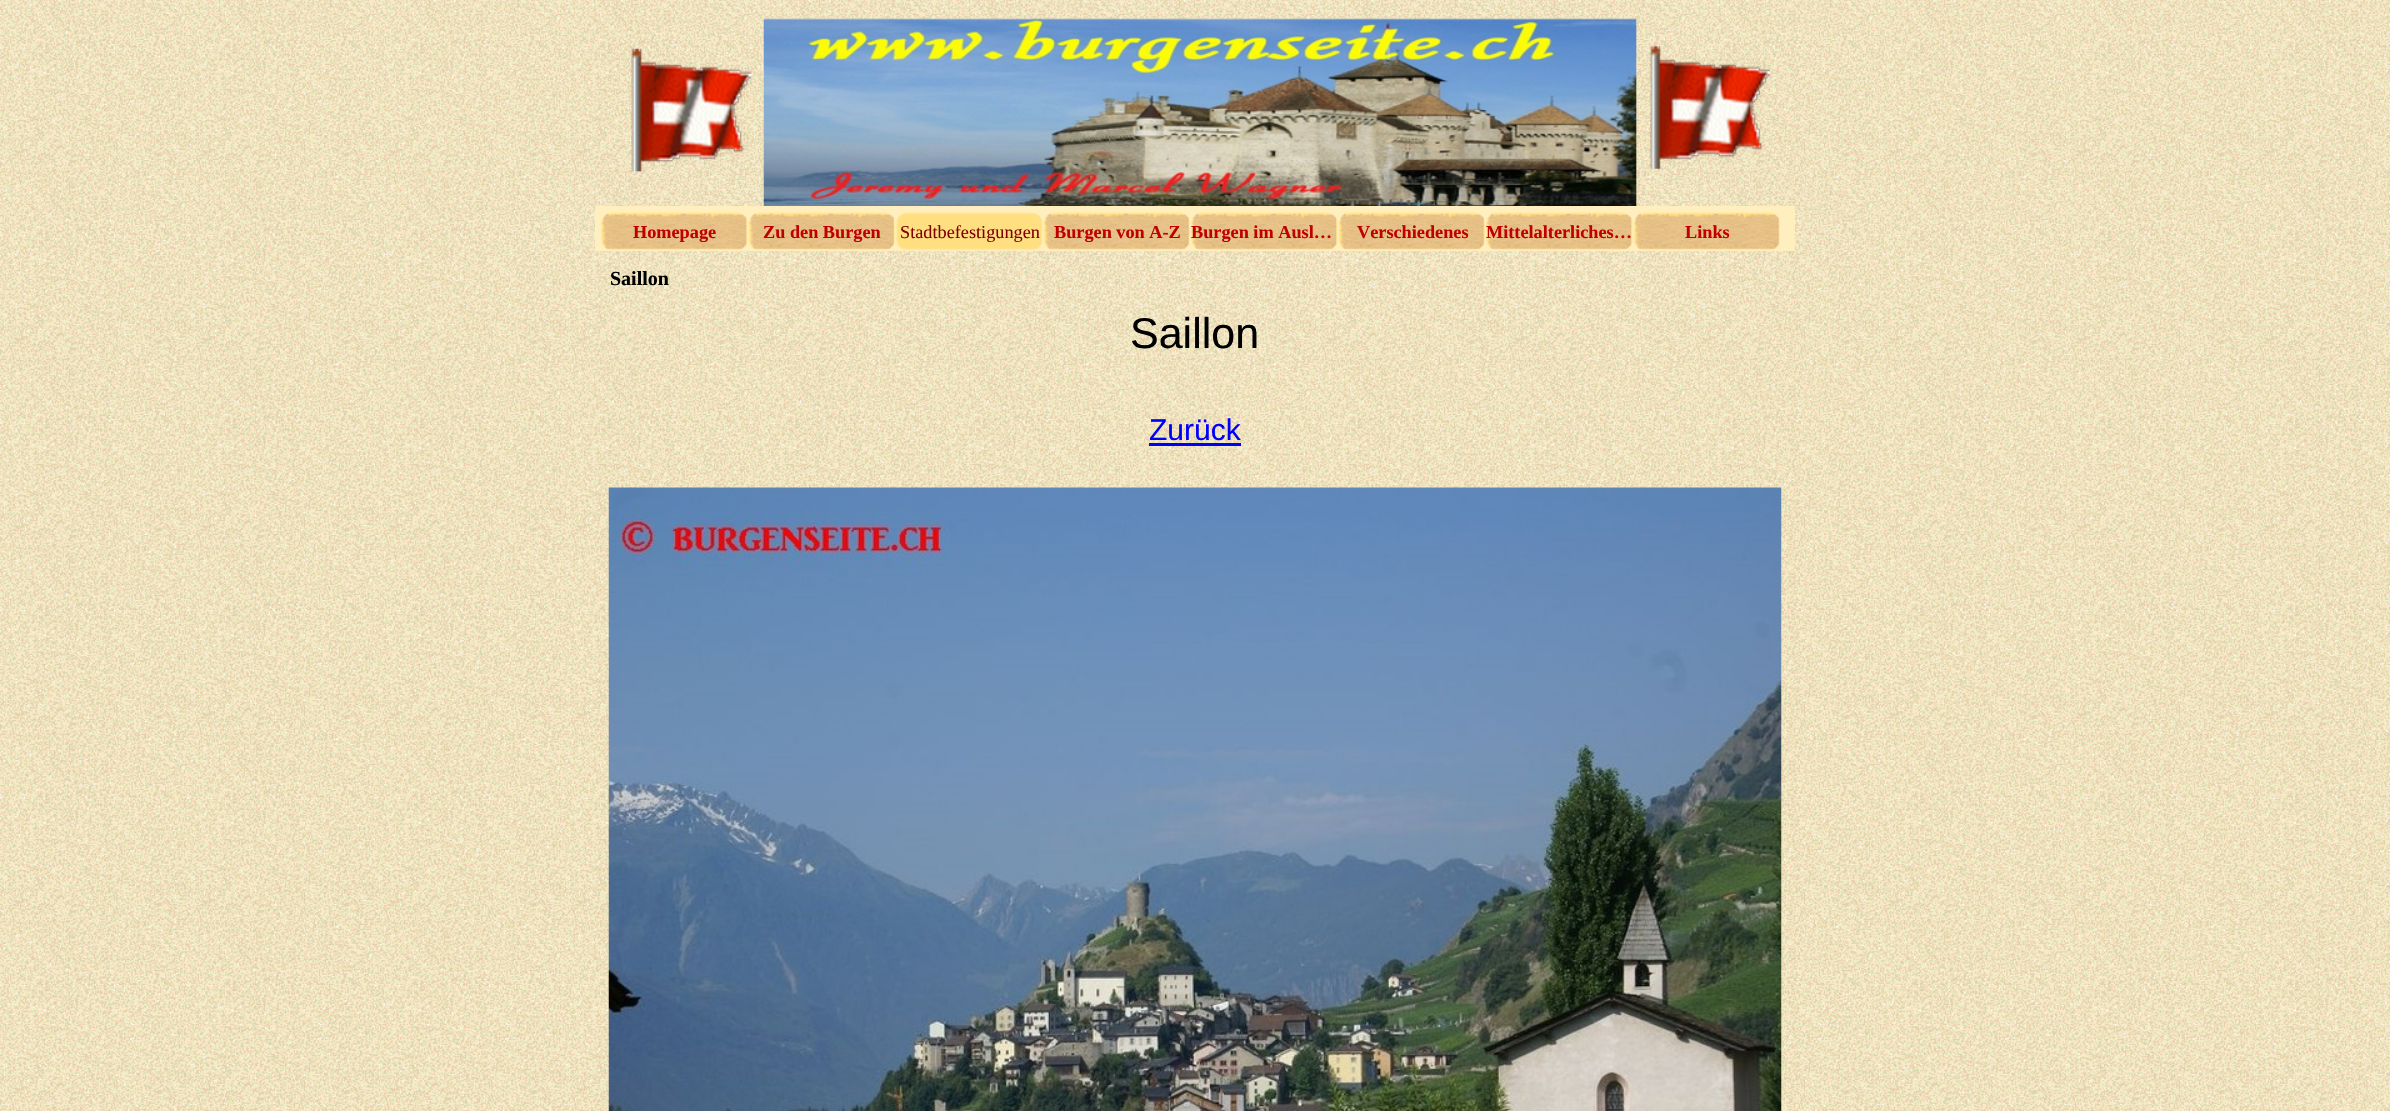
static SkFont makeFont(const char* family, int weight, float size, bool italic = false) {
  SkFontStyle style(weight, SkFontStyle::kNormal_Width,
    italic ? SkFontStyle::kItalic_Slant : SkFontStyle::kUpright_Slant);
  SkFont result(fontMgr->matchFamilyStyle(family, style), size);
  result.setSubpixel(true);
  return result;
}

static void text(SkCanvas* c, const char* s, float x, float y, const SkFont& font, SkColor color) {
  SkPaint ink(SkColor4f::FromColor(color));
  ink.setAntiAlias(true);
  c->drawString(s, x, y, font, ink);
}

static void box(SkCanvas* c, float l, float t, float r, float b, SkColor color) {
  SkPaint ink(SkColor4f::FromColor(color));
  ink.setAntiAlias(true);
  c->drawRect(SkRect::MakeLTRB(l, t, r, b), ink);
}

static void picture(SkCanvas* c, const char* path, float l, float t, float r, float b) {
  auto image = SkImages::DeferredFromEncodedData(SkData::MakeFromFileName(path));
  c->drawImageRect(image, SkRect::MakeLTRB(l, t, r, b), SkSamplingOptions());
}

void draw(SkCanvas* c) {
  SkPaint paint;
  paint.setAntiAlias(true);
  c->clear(0xffffffff);
  picture(c, "img_01.png", 0, 0, 2390, 1111);
  picture(c, "img_02.png", 631, 18, 1771, 206);
  box(c, 595, 206, 1795, 251, 0xffffefbf);
  picture(c, "img_03.png", 601, 212, 748, 250);
  SkFont face1 = makeFont("Liberation Serif", 700, 18.25f);
  text(c, "Homepage", 633, 238, face1, 0xffc00000);
  picture(c, "img_04.png", 748, 212, 895, 250);
  text(c, "Zu den Burgen", 763, 238, face1, 0xffc00000);
  picture(c, "img_05.png", 896, 212, 1043, 250);
  SkFont face2 = makeFont("Liberation Serif", 400, 18.25f);
  text(c, "Stadtbefestigungen", 900, 238, face2, 0xff800000);
  picture(c, "img_06.png", 1043, 212, 1190, 250);
  text(c, "Burgen von A-Z", 1054, 238, face1, 0xffc00000);
  picture(c, "img_07.png", 1191, 212, 1338, 250);
  text(c, "Burgen im Ausl…", 1191, 238, face1, 0xffc00000);
  picture(c, "img_06.png", 1338, 212, 1485, 250);
  text(c, "Verschiedenes", 1357, 238, face1, 0xffc00000);
  picture(c, "img_07.png", 1486, 212, 1633, 250);
  text(c, "Mittelalterliches…", 1486, 238, face1, 0xffc00000);
  picture(c, "img_08.png", 1633, 212, 1780, 250);
  text(c, "Links", 1685, 238, face1, 0xffc00000);
  SkFont face3 = makeFont("Liberation Serif", 700, 20);
  text(c, "Saillon", 610, 285, face3, 0xff000000);
  SkFont face4 = makeFont("Liberation Sans", 400, 43);
  text(c, "Saillon", 1130, 348, face4, 0xff000000);
  SkFont face5 = makeFont("Liberation Sans", 400, 30);
  text(c, "Zurück", 1149, 440, face5, 0xff0000ff);
  box(c, 1149, 443, 1241, 446, 0xff0000ff);
  picture(c, "img_09.png", 608, 487, 1782, 1111);
}
